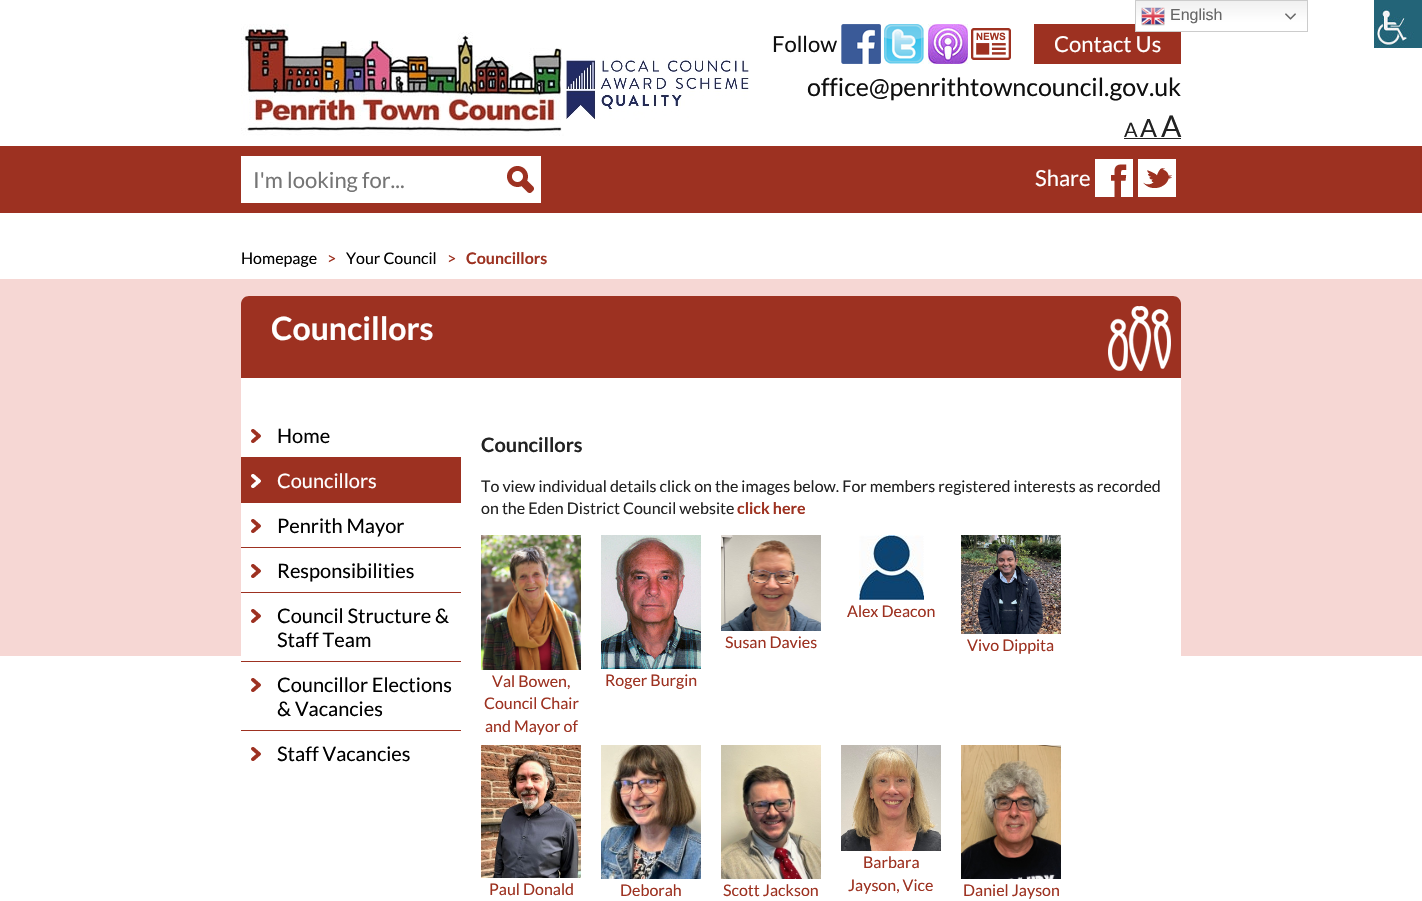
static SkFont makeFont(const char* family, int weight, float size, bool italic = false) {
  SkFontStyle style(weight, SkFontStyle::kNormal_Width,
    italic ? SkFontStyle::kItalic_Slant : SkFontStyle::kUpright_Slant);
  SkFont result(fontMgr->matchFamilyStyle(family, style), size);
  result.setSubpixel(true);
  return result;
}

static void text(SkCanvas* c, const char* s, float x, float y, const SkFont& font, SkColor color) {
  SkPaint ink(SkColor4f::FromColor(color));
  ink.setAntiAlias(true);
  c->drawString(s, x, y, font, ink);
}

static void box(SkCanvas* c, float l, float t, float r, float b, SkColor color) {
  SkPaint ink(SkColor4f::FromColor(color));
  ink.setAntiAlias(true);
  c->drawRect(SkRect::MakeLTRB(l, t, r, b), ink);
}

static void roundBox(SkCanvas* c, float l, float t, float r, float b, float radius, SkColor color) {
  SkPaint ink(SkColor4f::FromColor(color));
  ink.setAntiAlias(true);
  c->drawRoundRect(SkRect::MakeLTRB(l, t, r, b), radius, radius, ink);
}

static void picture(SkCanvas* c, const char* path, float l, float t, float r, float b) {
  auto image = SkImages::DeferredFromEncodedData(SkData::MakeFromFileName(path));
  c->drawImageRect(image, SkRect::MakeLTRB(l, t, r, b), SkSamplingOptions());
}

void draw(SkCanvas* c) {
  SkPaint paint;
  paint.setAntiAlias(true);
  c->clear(0xffffffff);
  box(c, 1034, 24, 1181, 64, 0xff9d3121);
  {
    const SkColor colors[] = {0xffefefef, 0xffffffff};
    const float stops[] = {0, 0.7f};
    const SkPoint ends[] = {{1222, 0}, {1222, 32}};
    paint.setShader(SkGradientShader::MakeLinear(ends, colors, stops, 2, SkTileMode::kClamp));
    paint.setAlpha(255);
  }
  c->drawRect(SkRect::MakeLTRB(1136, 1, 1307, 31), paint);
  paint.setStyle(SkPaint::kStroke_Style);
  paint.setStrokeWidth(1);
  paint.setShader(nullptr);
  paint.setColor(0xffcccccc);
  c->drawRect(SkRect::MakeLTRB(1135.5f, 0.5f, 1307.5f, 31.5f), paint);
  picture(c, "img_01.png", 1141, 7, 1165, 26);
  SkFont face1 = makeFont("Liberation Sans", 400, 16);
  text(c, "English", 1170, 20, face1, 0xff666666);
  picture(c, "img_02.png", 1285, 13, 1296, 20);
  picture(c, "img_03.png", 1374, 0, 1422, 48);
  picture(c, "img_04.png", 241, 24, 749, 136);
  SkFont face2 = makeFont("Lato", 400, 22);
  text(c, "Follow", 772, 52, face2, 0xff0f0f0f);
  picture(c, "img_05.png", 841, 24, 881, 64);
  picture(c, "img_06.png", 884, 24, 924, 64);
  picture(c, "img_07.png", 928, 24, 968, 64);
  picture(c, "img_08.png", 971, 28, 1011, 60);
  text(c, "Contact Us", 1054, 52, face2, 0xffffffff);
  SkFont face3 = makeFont("Lato", 400, 25);
  text(c, "office@penrithtowncouncil.gov.uk", 807, 96, face3, 0xff0f0f0f);
  SkFont face4 = makeFont("Lato", 400, 20);
  text(c, "A", 1124, 137, face4, 0xff222222);
  box(c, 1124, 138, 1181, 139, 0xff222222);
  text(c, "A", 1140, 137, face3, 0xff222222);
  SkFont face5 = makeFont("Lato", 400, 30);
  text(c, "A", 1161, 137, face5, 0xff222222);
  box(c, 0, 146, 1422, 213, 0xff9d3121);
  box(c, 241, 156, 541, 203, 0xffffffff);
  text(c, "I'm looking for...", 253, 188, face2, 0xff757575);
  picture(c, "img_09.png", 507, 166, 534, 193);
  text(c, "Share", 1035, 186, face2, 0xffffffff);
  picture(c, "img_10.png", 1095, 159, 1133, 197);
  picture(c, "img_11.png", 1138, 159, 1176, 197);
  SkFont face6 = makeFont("Lato", 400, 16);
  text(c, "Homepage", 241, 264, face6, 0xff000000);
  text(c, ">", 327, 264, face6, 0xff9d3221);
  text(c, "Your Council", 346, 264, face6, 0xff000000);
  text(c, ">", 447, 264, face6, 0xff9d3221);
  SkFont face7 = makeFont("Lato", 700, 16);
  text(c, "Councillors", 466, 264, face7, 0xff9d3221);
  box(c, 0, 279, 1422, 656, 0xfff6d7d4);
  roundBox(c, 241, 296, 1181, 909, 8, 0xffffffff);
  paint.setStyle(SkPaint::kFill_Style);
  paint.setColor(0xff9d3121);
  c->drawPath(SkPathBuilder().moveTo(249, 296).lineTo(1173, 296).cubicTo(1177.5f, 296, 1181, 299.5f, 1181, 304).lineTo(1181, 378).lineTo(241, 378).lineTo(241, 304).cubicTo(241, 299.5f, 244.5f, 296, 249, 296).close().detach(), paint);
  SkFont face8 = makeFont("Lato", 700, 32);
  text(c, "Councillors", 271, 340, face8, 0xffffffff);
  picture(c, "img_12.png", 1108, 306, 1171, 371);
  picture(c, "img_13.png", 251, 429, 261, 443);
  box(c, 241, 457, 461, 503, 0xff9d3121);
  text(c, "Home", 277, 443, face4, 0xff000000);
  picture(c, "img_14.png", 251, 474, 261, 488);
  text(c, "Councillors", 277, 488, face4, 0xffffffff);
  picture(c, "img_13.png", 251, 519, 261, 533);
  box(c, 241, 547, 461, 548, 0xff9d3121);
  text(c, "Penrith Mayor", 277, 533, face4, 0xff000000);
  picture(c, "img_13.png", 251, 564, 261, 578);
  box(c, 241, 592, 461, 593, 0xff9d3121);
  text(c, "Responsibilities", 277, 578, face4, 0xff000000);
  picture(c, "img_13.png", 251, 609, 261, 623);
  box(c, 241, 661, 461, 662, 0xff9d3121);
  text(c, "Council Structure &", 277, 623, face4, 0xff000000);
  text(c, "Staff Team", 277, 647, face4, 0xff000000);
  picture(c, "img_13.png", 251, 678, 261, 692);
  box(c, 241, 730, 461, 731, 0xff9d3121);
  text(c, "Councillor Elections", 277, 692, face4, 0xff000000);
  text(c, "& Vacancies", 277, 716, face4, 0xff000000);
  picture(c, "img_13.png", 251, 747, 261, 761);
  text(c, "Staff Vacancies", 277, 761, face4, 0xff000000);
  SkFont face9 = makeFont("Lato", 700, 20);
  text(c, "Councillors", 481, 452, face9, 0xff222222);
  text(c, "To view individual details click on the images below. For members registered interests as recorded", 481, 492, face6, 0xff222222);
  text(c, "on the Eden District Council website", 481, 514, face6, 0xff222222);
  text(c, "click here", 737, 514, face7, 0xff9d3221);
  picture(c, "img_15.png", 859, 535, 924, 600);
  text(c, "Alex Deacon", 847, 617, face6, 0xff9d3221);
  picture(c, "img_16.png", 721, 535, 821, 631);
  text(c, "Susan Davies", 725, 648, face6, 0xff9d3221);
  picture(c, "img_17.png", 961, 535, 1061, 634);
  text(c, "Vivo Dippita", 967, 651, face6, 0xff9d3221);
  picture(c, "img_18.png", 481, 535, 581, 670);
  text(c, "Val Bowen,", 492, 687, face6, 0xff9d3221);
  text(c, "Council Chair", 484, 709, face6, 0xff9d3221);
  text(c, "and Mayor of", 485, 732, face6, 0xff9d3221);
  picture(c, "img_19.png", 601, 535, 701, 669);
  text(c, "Roger Burgin", 605, 686, face6, 0xff9d3221);
  picture(c, "img_20.png", 481, 745, 581, 878);
  text(c, "Paul Donald", 489, 895, face6, 0xff9d3221);
  picture(c, "img_21.png", 601, 745, 701, 879);
  text(c, "Deborah", 620, 896, face6, 0xff9d3221);
  picture(c, "img_22.png", 721, 745, 821, 879);
  text(c, "Scott Jackson", 723, 896, face6, 0xff9d3221);
  picture(c, "img_23.png", 841, 745, 941, 851);
  text(c, "Barbara", 863, 868, face6, 0xff9d3221);
  text(c, "Jayson, Vice", 848, 891, face6, 0xff9d3221);
  picture(c, "img_24.png", 961, 745, 1061, 879);
  text(c, "Daniel Jayson", 963, 896, face6, 0xff9d3221);
}
